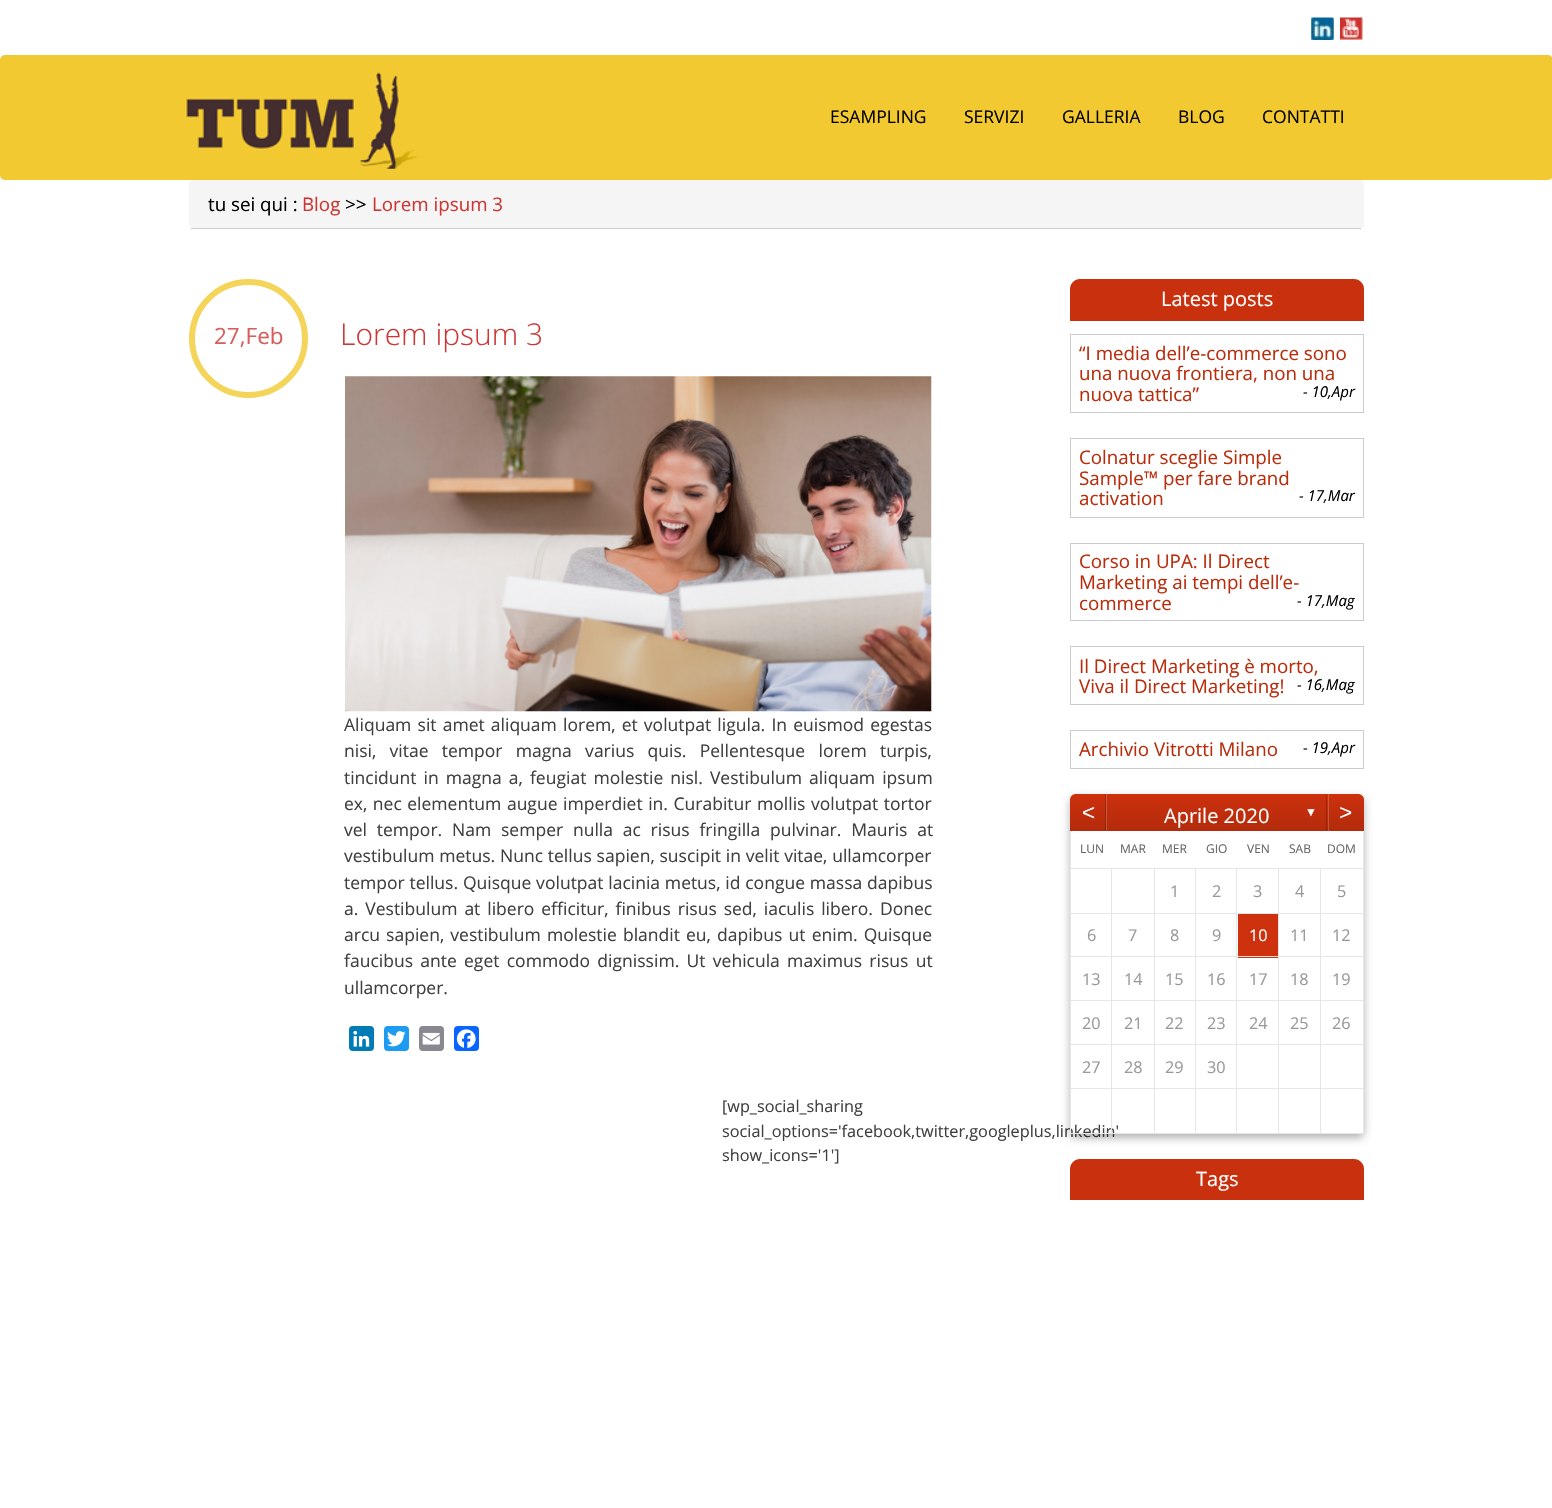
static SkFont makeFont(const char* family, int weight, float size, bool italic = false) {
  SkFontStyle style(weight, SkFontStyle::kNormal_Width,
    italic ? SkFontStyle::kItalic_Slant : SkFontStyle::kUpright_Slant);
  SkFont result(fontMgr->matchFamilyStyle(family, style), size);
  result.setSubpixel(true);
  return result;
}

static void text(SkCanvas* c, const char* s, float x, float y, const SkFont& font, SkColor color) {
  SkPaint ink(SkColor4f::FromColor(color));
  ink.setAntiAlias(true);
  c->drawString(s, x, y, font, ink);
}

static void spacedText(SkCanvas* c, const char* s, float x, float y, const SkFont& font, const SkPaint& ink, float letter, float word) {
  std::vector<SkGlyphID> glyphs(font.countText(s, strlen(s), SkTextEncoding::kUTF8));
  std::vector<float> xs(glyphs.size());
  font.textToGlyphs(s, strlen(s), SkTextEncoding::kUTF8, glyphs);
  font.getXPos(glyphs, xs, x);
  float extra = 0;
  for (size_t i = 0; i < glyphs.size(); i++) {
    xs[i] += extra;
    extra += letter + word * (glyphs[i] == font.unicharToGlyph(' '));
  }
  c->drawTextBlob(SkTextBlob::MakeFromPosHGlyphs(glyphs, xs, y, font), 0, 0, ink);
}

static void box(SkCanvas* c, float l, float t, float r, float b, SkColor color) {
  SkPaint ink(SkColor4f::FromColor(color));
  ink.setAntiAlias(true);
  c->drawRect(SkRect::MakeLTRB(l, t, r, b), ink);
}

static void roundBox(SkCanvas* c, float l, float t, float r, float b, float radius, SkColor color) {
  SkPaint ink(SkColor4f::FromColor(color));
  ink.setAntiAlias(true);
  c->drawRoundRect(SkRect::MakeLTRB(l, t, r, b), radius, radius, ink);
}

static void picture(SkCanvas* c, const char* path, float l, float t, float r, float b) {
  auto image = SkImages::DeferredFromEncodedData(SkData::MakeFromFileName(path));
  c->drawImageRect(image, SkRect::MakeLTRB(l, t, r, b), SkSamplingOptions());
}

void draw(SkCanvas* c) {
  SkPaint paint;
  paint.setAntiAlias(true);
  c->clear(0xffffffff);
  picture(c, "img_01.png", 1311, 17, 1334, 40);
  picture(c, "img_02.png", 1340, 17, 1363, 40);
  roundBox(c, 0, 55, 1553, 180, 5, 0xfff2c931);
  picture(c, "img_03.png", 185, 71, 418, 169);
  SkFont face1 = makeFont("Open Sans", 400, 17.5f);
  text(c, "ESAMPLING", 830, 123, face1, 0xff000000);
  text(c, "SERVIZI", 964, 123, face1, 0xff000000);
  text(c, "GALLERIA", 1062, 123, face1, 0xff000000);
  text(c, "BLOG", 1178, 123, face1, 0xff000000);
  text(c, "CONTATTI", 1262, 123, face1, 0xff000000);
  roundBox(c, 189, 180, 1364, 229, 5, 0xfff5f5f5);
  box(c, 191, 228, 1361, 229, 0xffcccccc);
  SkFont face2 = makeFont("Open Sans", 400, 18.75f);
  text(c, "tu sei qui :", 208, 211, face2, 0xff000000);
  text(c, "Blog", 302, 211, face2, 0xffce3633);
  text(c, ">>", 345, 211, face2, 0xff000000);
  text(c, "Lorem ipsum 3", 372, 211, face2, 0xffce3633);
  paint.setStyle(SkPaint::kStroke_Style);
  paint.setStrokeWidth(6);
  paint.setColor(0xfff5d45a);
  c->drawCircle(248.5f, 338.5f, 56.5f, paint);
  SkFont face3 = makeFont("Open Sans", 400, 22.5f);
  text(c, "27,Feb", 214, 344, face3, 0xffd85e5c);
  SkFont face4 = makeFont("Open Sans", 300, 30);
  text(c, "Lorem ipsum 3", 340, 345, face4, 0xffce3633);
  picture(c, "img_04.png", 345, 376, 932, 712);
  SkFont face5 = makeFont("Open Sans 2", 400, 17.5f);
  paint.setStyle(SkPaint::kFill_Style);
  paint.setColor(0xff404040);
  spacedText(c, "Aliquam sit amet aliquam lorem, et volutpat ligula. In euismod egestas", 344, 731, face5, paint, 0, 1.6f);
  spacedText(c, "nisi, vitae tempor magna varius quis. Pellentesque lorem turpis,", 344, 757, face5, paint, 0, 8.75f);
  spacedText(c, "tincidunt in magna a, feugiat molestie nisl. Vestibulum aliquam ipsum", 344, 784, face5, paint, 0, 2.5f);
  spacedText(c, "ex, nec elementum augue imperdiet in. Curabitur mollis volutpat tortor", 344, 810, face5, paint, 0, 1);
  spacedText(c, "vel tempor. Nam semper nulla ac risus fringilla pulvinar. Mauris at", 344, 836, face5, paint, 0, 5.25f);
  spacedText(c, "vestibulum metus. Nunc tellus sapien, suscipit in velit vitae, ullamcorper", 344, 862, face5, paint, 0, 0.25f);
  spacedText(c, "tempor tellus. Quisque volutpat lacinia metus, id congue massa dapibus", 344, 889, face5, paint, 0, 0.25f);
  spacedText(c, "a. Vestibulum at libero efficitur, finibus risus sed, iaculis libero. Donec", 344, 915, face5, paint, 0, 2.4f);
  spacedText(c, "arcu sapien, vestibulum molestie blandit eu, dapibus ut enim. Quisque", 344, 941, face5, paint, 0, 1.6f);
  spacedText(c, "faucibus ante eget commodo dignissim. Ut vehicula maximus risus ut", 344, 967, face5, paint, 0, 2.75f);
  text(c, "ullamcorper.", 344, 994, face5, 0xff404040);
  roundBox(c, 349, 1026, 374, 1051, 4, 0xff007bb5);
  picture(c, "img_05.png", 353, 1030, 370, 1047);
  roundBox(c, 384, 1026, 409, 1051, 4, 0xff1d9bf0);
  picture(c, "img_06.png", 387, 1031, 406, 1047);
  roundBox(c, 419, 1026, 444, 1051, 4, 0xff888990);
  picture(c, "img_07.png", 422, 1032, 440, 1045);
  roundBox(c, 454, 1026, 479, 1051, 4, 0xff0866ff);
  picture(c, "img_08.png", 456, 1029, 476, 1048);
  SkFont face6 = makeFont("Open Sans", 400, 16.25f);
  text(c, "[wp_social_sharing", 722, 1112, face6, 0xff404040);
  text(c, "social_options='facebook,twitter,googleplus,linkedin'", 722, 1137, face6, 0xff404040);
  text(c, "show_icons='1']", 722, 1161, face6, 0xff404040);
  paint.setColor(0xffc9300d);
  c->drawPath(SkPathBuilder().moveTo(1080, 279).lineTo(1354, 279).cubicTo(1359.5f, 279, 1364, 283.5f, 1364, 289).lineTo(1364, 321).lineTo(1070, 321).lineTo(1070, 289).cubicTo(1070, 283.5f, 1074.5f, 279, 1080, 279).close().detach(), paint);
  SkFont face7 = makeFont("Open Sans", 400, 20);
  text(c, "Latest posts", 1161, 306, face7, 0xffffffff);
  paint.setStyle(SkPaint::kStroke_Style);
  paint.setStrokeWidth(1);
  paint.setColor(0xffcccccc);
  c->drawRect(SkRect::MakeLTRB(1070.5f, 334.5f, 1363.5f, 412.5f), paint);
  text(c, "“I media dell’e-commerce sono", 1079, 360, face2, 0xffba2d0c);
  text(c, "una nuova frontiera, non una", 1079, 380, face2, 0xffba2d0c);
  text(c, "nuova tattica”", 1079, 401, face2, 0xffba2d0c);
  SkFont face8 = makeFont("Open Sans", 400, 15, true);
  text(c, "- 10,Apr", 1303, 397, face8, 0xff000000);
  c->drawRect(SkRect::MakeLTRB(1070.5f, 438.5f, 1363.5f, 517.5f), paint);
  text(c, "Colnatur sceglie Simple", 1079, 464, face2, 0xffba2d0c);
  text(c, "Sample™ per fare brand", 1079, 485, face2, 0xffba2d0c);
  text(c, "activation", 1079, 505, face2, 0xffba2d0c);
  text(c, "- 17,Mar", 1299, 501, face8, 0xff000000);
  c->drawRect(SkRect::MakeLTRB(1070.5f, 543.5f, 1363.5f, 620.5f), paint);
  text(c, "Corso in UPA: Il Direct", 1079, 568, face2, 0xffba2d0c);
  text(c, "Marketing ai tempi dell’e-", 1079, 589, face2, 0xffba2d0c);
  text(c, "commerce", 1079, 610, face2, 0xffba2d0c);
  text(c, "- 17,Mag", 1297, 606, face8, 0xff000000);
  c->drawRect(SkRect::MakeLTRB(1070.5f, 646.5f, 1363.5f, 704.5f), paint);
  text(c, "Il Direct Marketing è morto,", 1079, 673, face2, 0xffba2d0c);
  text(c, "Viva il Direct Marketing!", 1079, 693, face2, 0xffba2d0c);
  text(c, "- 16,Mag", 1297, 690, face8, 0xff000000);
  c->drawRect(SkRect::MakeLTRB(1070.5f, 730.5f, 1363.5f, 768.5f), paint);
  text(c, "Archivio Vitrotti Milano", 1079, 756, face2, 0xffba2d0c);
  text(c, "- 19,Apr", 1303, 753, face8, 0xff000000);
  c->save();
  c->clipPath(SkPathBuilder(SkPathFillType::kEvenOdd).moveTo(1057, 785).lineTo(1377, 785).lineTo(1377, 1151).lineTo(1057, 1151).close().moveTo(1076, 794).lineTo(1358, 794).cubicTo(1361.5f, 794, 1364, 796.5f, 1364, 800).lineTo(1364, 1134).lineTo(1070, 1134).lineTo(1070, 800).cubicTo(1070, 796.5f, 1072.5f, 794, 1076, 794).close().detach(), true);
  paint.setStyle(SkPaint::kFill_Style);
  paint.setColor(0x4d000000);
  paint.setMaskFilter(SkMaskFilter::MakeBlur(kNormal_SkBlurStyle, 4));
  c->drawRoundRect(SkRect::MakeLTRB(1070, 798, 1364, 1138), 6, 6, paint);
  paint.setMaskFilter(nullptr);
  c->restore();
  {
    const SkColor colors[] = {0xffcd310d, 0xffb32b0c};
    const float stops[] = {0, 1};
    const SkPoint ends[] = {{1217, 794}, {1217, 831}};
    paint.setShader(SkGradientShader::MakeLinear(ends, colors, stops, 2, SkTileMode::kClamp));
    paint.setAlpha(255);
  }
  c->drawPath(SkPathBuilder().moveTo(1076, 794).lineTo(1358, 794).cubicTo(1361.5f, 794, 1364, 796.5f, 1364, 800).lineTo(1364, 831).lineTo(1070, 831).lineTo(1070, 800).cubicTo(1070, 796.5f, 1072.5f, 794, 1076, 794).close().detach(), paint);
  {
    const SkColor colors[] = {0xffa4270a, 0xff8f220a};
    const float stops[] = {0, 1};
    const SkPoint ends[] = {{1217, 794}, {1217, 831}};
    paint.setShader(SkGradientShader::MakeLinear(ends, colors, stops, 2, SkTileMode::kClamp));
    paint.setAlpha(255);
  }
  c->drawRect(SkRect::MakeLTRB(1326, 794, 1327, 831), paint);
  {
    const SkColor colors[] = {0xffd75a3d, 0xffc2553d};
    const float stops[] = {0, 1};
    const SkPoint ends[] = {{1217, 794}, {1217, 831}};
    paint.setShader(SkGradientShader::MakeLinear(ends, colors, stops, 2, SkTileMode::kClamp));
    paint.setAlpha(255);
  }
  c->drawRect(SkRect::MakeLTRB(1328, 794, 1329, 831), paint);
  c->drawRect(SkRect::MakeLTRB(1106, 794, 1107, 831), paint);
  {
    const SkColor colors[] = {0xffa4270a, 0xff8f220a};
    const float stops[] = {0, 1};
    const SkPoint ends[] = {{1217, 794}, {1217, 831}};
    paint.setShader(SkGradientShader::MakeLinear(ends, colors, stops, 2, SkTileMode::kClamp));
    paint.setAlpha(255);
  }
  c->drawRect(SkRect::MakeLTRB(1105, 794, 1106, 831), paint);
  SkFont face9 = makeFont("Liberation Sans", 400, 22.5f);
  text(c, "˂", 1082, 820, face9, 0xffffffff);
  text(c, "Aprile 2020", 1164, 823, face7, 0xffffffff);
  SkFont face10 = makeFont("Liberation Sans", 400, 12);
  text(c, "▼", 1305, 816, face10, 0xffffffff);
  text(c, "˃", 1339, 820, face9, 0xffffffff);
  box(c, 1363, 831, 1364, 868, 0xffe6e6e6);
  box(c, 1070, 831, 1071, 868, 0xffe6e6e6);
  SkFont face11 = makeFont("Open Sans", 400, 12);
  text(c, "LUN", 1080, 853, face11, 0xff666666);
  text(c, "MAR", 1120, 853, face11, 0xff666666);
  text(c, "MER", 1162, 853, face11, 0xff666666);
  text(c, "GIO", 1206, 853, face11, 0xff666666);
  text(c, "VEN", 1247, 853, face11, 0xff666666);
  text(c, "SAB", 1289, 853, face11, 0xff666666);
  text(c, "DOM", 1327, 853, face11, 0xff666666);
  box(c, 1070, 868, 1364, 869, 0xffe6e6e6);
  box(c, 1363, 868, 1364, 1134, 0xffe6e6e6);
  box(c, 1070, 868, 1071, 1134, 0xffe6e6e6);
  box(c, 1111, 869, 1112, 1134, 0xffe6e6e6);
  box(c, 1071, 913, 1113, 914, 0xffe6e6e6);
  box(c, 1154, 869, 1155, 1134, 0xffe6e6e6);
  box(c, 1113, 913, 1155, 914, 0xffe6e6e6);
  box(c, 1195, 869, 1196, 1134, 0xffe6e6e6);
  box(c, 1155, 913, 1196, 914, 0xffe6e6e6);
  text(c, "1", 1170, 897, face6, 0xff999999);
  box(c, 1236, 869, 1237, 1134, 0xffe6e6e6);
  box(c, 1196, 913, 1238, 914, 0xffe6e6e6);
  text(c, "2", 1212, 897, face6, 0xff999999);
  box(c, 1278, 869, 1279, 1134, 0xffe6e6e6);
  box(c, 1238, 913, 1279, 914, 0xffe6e6e6);
  text(c, "3", 1253, 897, face6, 0xff999999);
  box(c, 1320, 869, 1321, 1134, 0xffe6e6e6);
  box(c, 1279, 913, 1363, 914, 0xffe6e6e6);
  text(c, "4", 1295, 897, face6, 0xff999999);
  text(c, "5", 1337, 897, face6, 0xff999999);
  box(c, 1071, 956, 1238, 957, 0xffe6e6e6);
  text(c, "6", 1087, 941, face6, 0xff999999);
  text(c, "7", 1128, 941, face6, 0xff999999);
  text(c, "8", 1170, 941, face6, 0xff999999);
  text(c, "9", 1212, 941, face6, 0xff999999);
  box(c, 1238, 914, 1278, 958, 0xffcd310d);
  box(c, 1238, 956, 1363, 957, 0xffe6e6e6);
  text(c, "10", 1249, 941, face6, 0xffffffff);
  text(c, "11", 1290, 941, face6, 0xff999999);
  text(c, "12", 1332, 941, face6, 0xff999999);
  box(c, 1071, 1000, 1363, 1001, 0xffe6e6e6);
  text(c, "13", 1082, 985, face6, 0xff999999);
  text(c, "14", 1124, 985, face6, 0xff999999);
  text(c, "15", 1165, 985, face6, 0xff999999);
  text(c, "16", 1207, 985, face6, 0xff999999);
  text(c, "17", 1249, 985, face6, 0xff999999);
  text(c, "18", 1290, 985, face6, 0xff999999);
  text(c, "19", 1332, 985, face6, 0xff999999);
  box(c, 1071, 1044, 1363, 1045, 0xffe6e6e6);
  text(c, "20", 1082, 1029, face6, 0xff999999);
  text(c, "21", 1124, 1029, face6, 0xff999999);
  text(c, "22", 1165, 1029, face6, 0xff999999);
  text(c, "23", 1207, 1029, face6, 0xff999999);
  text(c, "24", 1249, 1029, face6, 0xff999999);
  text(c, "25", 1290, 1029, face6, 0xff999999);
  text(c, "26", 1332, 1029, face6, 0xff999999);
  box(c, 1071, 1088, 1363, 1089, 0xffe6e6e6);
  text(c, "27", 1082, 1073, face6, 0xff999999);
  text(c, "28", 1124, 1073, face6, 0xff999999);
  text(c, "29", 1165, 1073, face6, 0xff999999);
  text(c, "30", 1207, 1073, face6, 0xff999999);
  box(c, 1071, 1133, 1363, 1134, 0xffe6e6e6);
  paint.setShader(nullptr);
  paint.setColor(0xffc9300d);
  c->drawPath(SkPathBuilder().moveTo(1080, 1159).lineTo(1354, 1159).cubicTo(1359.5f, 1159, 1364, 1163.5f, 1364, 1169).lineTo(1364, 1200).lineTo(1070, 1200).lineTo(1070, 1169).cubicTo(1070, 1163.5f, 1074.5f, 1159, 1080, 1159).close().detach(), paint);
  text(c, "Tags", 1196, 1186, face7, 0xffffffff);
}
